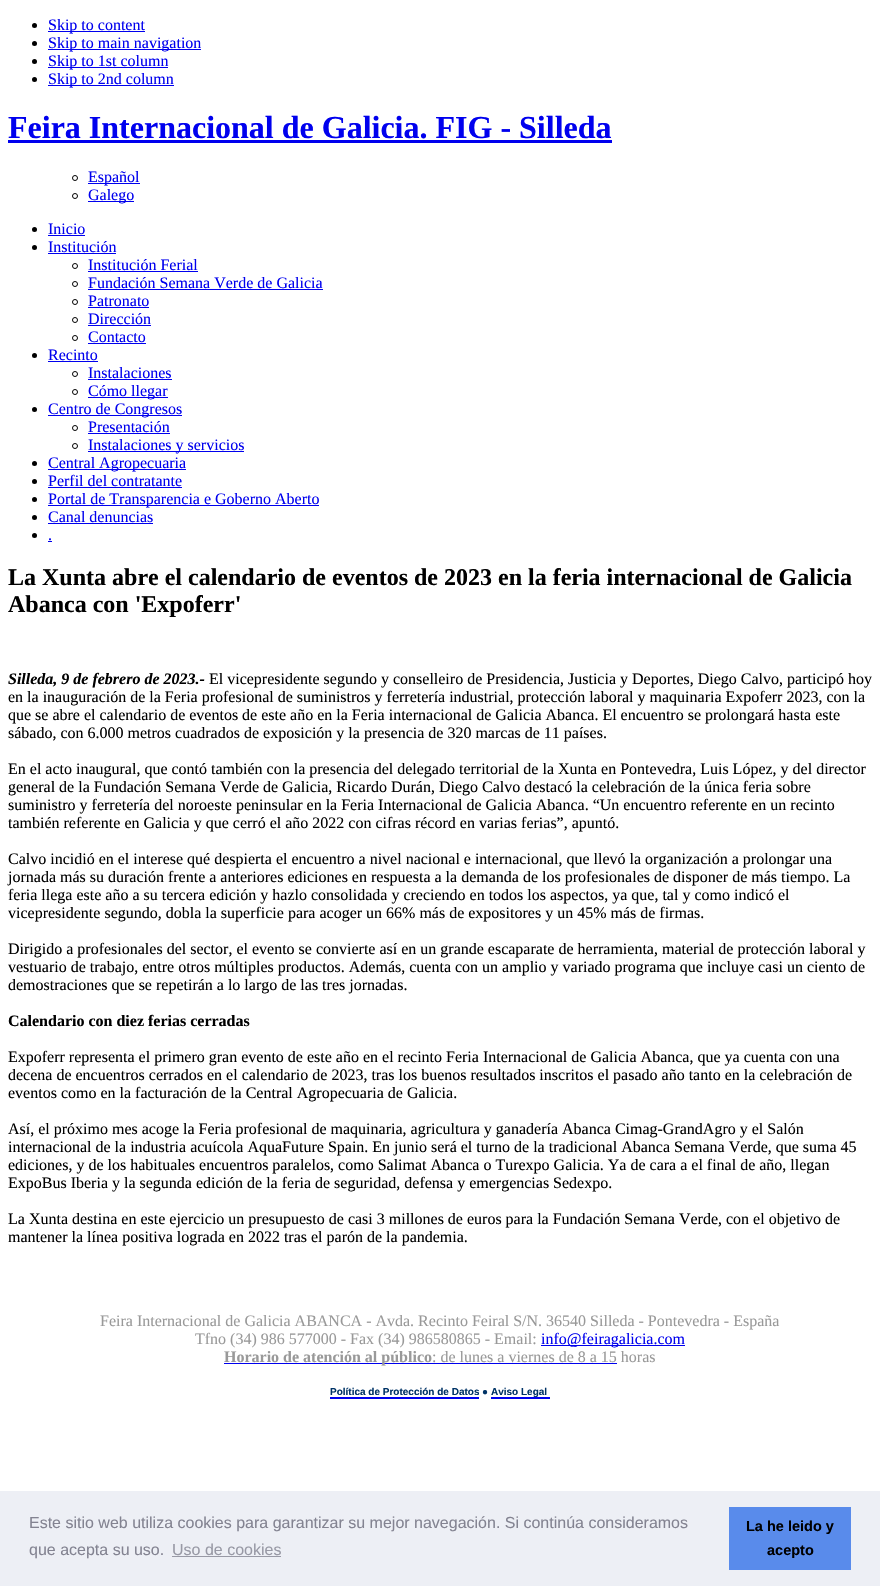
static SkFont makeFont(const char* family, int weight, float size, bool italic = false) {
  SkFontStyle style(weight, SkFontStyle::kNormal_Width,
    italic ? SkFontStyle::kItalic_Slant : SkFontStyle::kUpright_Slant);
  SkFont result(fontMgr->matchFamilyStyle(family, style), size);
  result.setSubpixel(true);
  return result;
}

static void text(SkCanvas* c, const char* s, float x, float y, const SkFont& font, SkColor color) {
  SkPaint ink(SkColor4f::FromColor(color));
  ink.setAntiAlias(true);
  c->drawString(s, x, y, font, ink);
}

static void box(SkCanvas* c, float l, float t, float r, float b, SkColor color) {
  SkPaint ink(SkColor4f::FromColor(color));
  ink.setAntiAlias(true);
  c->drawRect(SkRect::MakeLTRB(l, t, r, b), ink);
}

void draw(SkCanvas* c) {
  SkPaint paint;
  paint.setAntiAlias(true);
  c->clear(0xffffffff);
  paint.setColor(0xff000000);
  c->drawCircle(34.5f, 25.5f, 2.5f, paint);
  box(c, 48, 31, 145, 32, 0xff0000ee);
  SkFont face1 = makeFont("Liberation Serif", 400, 16);
  text(c, "Skip to content", 48, 30, face1, 0xff0000ee);
  c->drawCircle(34.5f, 43.5f, 2.5f, paint);
  box(c, 48, 49, 201, 50, 0xff0000ee);
  text(c, "Skip to main navigation", 48, 48, face1, 0xff0000ee);
  c->drawCircle(34.5f, 61.5f, 2.5f, paint);
  box(c, 48, 67, 168, 68, 0xff0000ee);
  text(c, "Skip to 1st column", 48, 66, face1, 0xff0000ee);
  c->drawCircle(34.5f, 79.5f, 2.5f, paint);
  box(c, 48, 85, 174, 86, 0xff0000ee);
  text(c, "Skip to 2nd column", 48, 84, face1, 0xff0000ee);
  SkFont face2 = makeFont("Liberation Serif", 700, 32);
  text(c, "Feira Internacional de Galicia. FIG - Silleda", 8, 138, face2, 0xff0000ee);
  box(c, 8, 140, 612, 143, 0xff0000ee);
  paint.setStyle(SkPaint::kStroke_Style);
  paint.setStrokeWidth(1);
  c->drawCircle(75, 178, 2.5f, paint);
  box(c, 88, 183, 140, 184, 0xff0000ee);
  text(c, "Español", 88, 182, face1, 0xff0000ee);
  c->drawCircle(75, 196, 2.5f, paint);
  box(c, 88, 201, 134, 202, 0xff0000ee);
  text(c, "Galego", 88, 200, face1, 0xff0000ee);
  paint.setStyle(SkPaint::kFill_Style);
  c->drawCircle(34.5f, 229.5f, 2.5f, paint);
  text(c, "Inicio", 48, 234, face1, 0xff0000ee);
  box(c, 48, 235, 85, 236, 0xff0000ee);
  c->drawCircle(34.5f, 247.5f, 2.5f, paint);
  text(c, "Institución", 48, 252, face1, 0xff0000ee);
  box(c, 48, 253, 116, 254, 0xff0000ee);
  paint.setStyle(SkPaint::kStroke_Style);
  c->drawCircle(75, 266, 2.5f, paint);
  text(c, "Institución Ferial", 88, 270, face1, 0xff0000ee);
  box(c, 88, 271, 198, 272, 0xff0000ee);
  c->drawCircle(75, 284, 2.5f, paint);
  text(c, "Fundación Semana Verde de Galicia", 88, 288, face1, 0xff0000ee);
  box(c, 88, 289, 323, 290, 0xff0000ee);
  c->drawCircle(75, 302, 2.5f, paint);
  text(c, "Patronato", 88, 306, face1, 0xff0000ee);
  box(c, 88, 307, 149, 308, 0xff0000ee);
  c->drawCircle(75, 320, 2.5f, paint);
  text(c, "Dirección", 88, 324, face1, 0xff0000ee);
  box(c, 88, 325, 151, 326, 0xff0000ee);
  c->drawCircle(75, 338, 2.5f, paint);
  text(c, "Contacto", 88, 342, face1, 0xff0000ee);
  box(c, 88, 343, 146, 344, 0xff0000ee);
  paint.setStyle(SkPaint::kFill_Style);
  c->drawCircle(34.5f, 355.5f, 2.5f, paint);
  text(c, "Recinto", 48, 360, face1, 0xff0000ee);
  box(c, 48, 361, 98, 362, 0xff0000ee);
  paint.setStyle(SkPaint::kStroke_Style);
  c->drawCircle(75, 374, 2.5f, paint);
  text(c, "Instalaciones", 88, 378, face1, 0xff0000ee);
  box(c, 88, 379, 172, 380, 0xff0000ee);
  c->drawCircle(75, 392, 2.5f, paint);
  box(c, 88, 397, 168, 398, 0xff0000ee);
  text(c, "Cómo llegar", 88, 396, face1, 0xff0000ee);
  paint.setStyle(SkPaint::kFill_Style);
  c->drawCircle(34.5f, 409.5f, 2.5f, paint);
  box(c, 48, 415, 182, 416, 0xff0000ee);
  text(c, "Centro de Congresos", 48, 414, face1, 0xff0000ee);
  paint.setStyle(SkPaint::kStroke_Style);
  c->drawCircle(75, 428, 2.5f, paint);
  text(c, "Presentación", 88, 432, face1, 0xff0000ee);
  box(c, 88, 433, 170, 434, 0xff0000ee);
  c->drawCircle(75, 446, 2.5f, paint);
  box(c, 88, 451, 244, 452, 0xff0000ee);
  text(c, "Instalaciones y servicios", 88, 450, face1, 0xff0000ee);
  paint.setStyle(SkPaint::kFill_Style);
  c->drawCircle(34.5f, 463.5f, 2.5f, paint);
  box(c, 48, 469, 186, 470, 0xff0000ee);
  text(c, "Central Agropecuaria", 48, 468, face1, 0xff0000ee);
  c->drawCircle(34.5f, 481.5f, 2.5f, paint);
  text(c, "Perfil del contratante", 48, 486, face1, 0xff0000ee);
  box(c, 48, 487, 182, 488, 0xff0000ee);
  c->drawCircle(34.5f, 499.5f, 2.5f, paint);
  box(c, 48, 505, 319, 506, 0xff0000ee);
  text(c, "Portal de Transparencia e Goberno Aberto", 48, 504, face1, 0xff0000ee);
  c->drawCircle(34.5f, 517.5f, 2.5f, paint);
  text(c, "Canal denuncias", 48, 522, face1, 0xff0000ee);
  box(c, 48, 523, 153, 524, 0xff0000ee);
  c->drawCircle(34.5f, 535.5f, 2.5f, paint);
  text(c, ".", 48, 540, face1, 0xff0000ee);
  box(c, 48, 541, 52, 542, 0xff0000ee);
  SkFont face3 = makeFont("Liberation Serif", 700, 24);
  text(c, "La Xunta abre el calendario de eventos de 2023 en la feria internacional de Galicia", 8, 585, face3, 0xff000000);
  text(c, "Abanca con 'Expoferr'", 8, 612, face3, 0xff000000);
  SkFont face4 = makeFont("Liberation Serif", 700, 16, true);
  text(c, "Silleda, 9 de febrero de 2023.-", 8, 684, face4, 0xff000000);
  text(c, "El vicepresidente segundo y conselleiro de Presidencia, Justicia y Deportes, Diego Calvo, participó hoy", 209, 684, face1, 0xff000000);
  text(c, "en la inauguración de la Feria profesional de suministros y ferretería industrial, protección laboral y maquinaria Expoferr 2023, con la", 8, 702, face1, 0xff000000);
  text(c, "que se abre el calendario de eventos de este año en la Feria internacional de Galicia Abanca. El encuentro se prolongará hasta este", 8, 720, face1, 0xff000000);
  text(c, "sábado, con 6.000 metros cuadrados de exposición y la presencia de 320 marcas de 11 países.", 8, 738, face1, 0xff000000);
  text(c, "En el acto inaugural, que contó también con la presencia del delegado territorial de la Xunta en Pontevedra, Luis López, y del director", 8, 774, face1, 0xff000000);
  text(c, "general de la Fundación Semana Verde de Galicia, Ricardo Durán, Diego Calvo destacó la celebración de la única feria sobre", 8, 792, face1, 0xff000000);
  text(c, "suministro y ferretería del noroeste peninsular en la Feria Internacional de Galicia Abanca. “Un encuentro referente en un recinto", 8, 810, face1, 0xff000000);
  text(c, "también referente en Galicia y que cerró el año 2022 con cifras récord en varias ferias”, apuntó.", 8, 828, face1, 0xff000000);
  text(c, "Calvo incidió en el interese qué despierta el encuentro a nivel nacional e internacional, que llevó la organización a prolongar una", 8, 864, face1, 0xff000000);
  text(c, "jornada más su duración frente a anteriores ediciones en respuesta a la demanda de los profesionales de disponer de más tiempo. La", 8, 882, face1, 0xff000000);
  text(c, "feria llega este año a su tercera edición y hazlo consolidada y creciendo en todos los aspectos, ya que, tal y como indicó el", 8, 900, face1, 0xff000000);
  text(c, "vicepresidente segundo, dobla la superficie para acoger un 66% más de expositores y un 45% más de firmas.", 8, 918, face1, 0xff000000);
  text(c, "Dirigido a profesionales del sector, el evento se convierte así en un grande escaparate de herramienta, material de protección laboral y", 8, 954, face1, 0xff000000);
  text(c, "vestuario de trabajo, entre otros múltiples productos. Además, cuenta con un amplio y variado programa que incluye casi un ciento de", 8, 972, face1, 0xff000000);
  text(c, "demostraciones que se repetirán a lo largo de las tres jornadas.", 8, 990, face1, 0xff000000);
  SkFont face5 = makeFont("Liberation Serif", 700, 16);
  text(c, "Calendario con diez ferias cerradas", 8, 1026, face5, 0xff000000);
  text(c, "Expoferr representa el primero gran evento de este año en el recinto Feria Internacional de Galicia Abanca, que ya cuenta con una", 8, 1062, face1, 0xff000000);
  text(c, "decena de encuentros cerrados en el calendario de 2023, tras los buenos resultados inscritos el pasado año tanto en la celebración de", 8, 1080, face1, 0xff000000);
  text(c, "eventos como en la facturación de la Central Agropecuaria de Galicia.", 8, 1098, face1, 0xff000000);
  text(c, "Así, el próximo mes acoge la Feria profesional de maquinaria, agricultura y ganadería Abanca Cimag-GrandAgro y el Salón", 8, 1134, face1, 0xff000000);
  text(c, "internacional de la industria acuícola AquaFuture Spain. En junio será el turno de la tradicional Abanca Semana Verde, que suma 45", 8, 1152, face1, 0xff000000);
  text(c, "ediciones, y de los habituales encuentros paralelos, como Salimat Abanca o Turexpo Galicia. Ya de cara a el final de año, llegan", 8, 1170, face1, 0xff000000);
  text(c, "ExpoBus Iberia y la segunda edición de la feria de seguridad, defensa y emergencias Sedexpo.", 8, 1188, face1, 0xff000000);
  text(c, "La Xunta destina en este ejercicio un presupuesto de casi 3 millones de euros para la Fundación Semana Verde, con el objetivo de", 8, 1224, face1, 0xff000000);
  text(c, "mantener la línea positiva lograda en 2022 tras el parón de la pandemia.", 8, 1242, face1, 0xff000000);
  text(c, "Feira Internacional de Galicia ABANCA - Avda. Recinto Feiral S/N. 36540 Silleda - Pontevedra - España", 100, 1326, face1, 0xff999999);
  text(c, "Tfno (34) 986 577000 - Fax (34) 986580865 - Email:", 195, 1344, face1, 0xff999999);
  box(c, 541, 1345, 685, 1346, 0xff0000ee);
  text(c, "info@feiragalicia.com", 541, 1344, face1, 0xff0000ee);
  box(c, 224, 1363, 617, 1364, 0xff0000ee);
  text(c, "Horario de atención al público", 224, 1362, face5, 0xff999999);
  text(c, ": de lunes a viernes de 8 a 15 horas", 432, 1362, face1, 0xff999999);
  SkFont face6 = makeFont("Liberation Sans", 700, 10);
  text(c, "Política de Protección de Datos", 330, 1395, face6, 0xff003366);
  box(c, 330, 1397, 479, 1399, 0xff0000ee);
  SkFont face7 = makeFont("Liberation Sans", 400, 10);
  text(c, "●", 482, 1395, face7, 0xff003366);
  box(c, 479, 1386, 480, 1397, 0xffffffff);
  box(c, 491, 1397, 550, 1399, 0xff0000ee);
  text(c, "Aviso Legal", 491, 1395, face6, 0xff003366);
  box(c, 0, 1491, 880, 1586, 0xffedeff5);
  SkFont face8 = makeFont("Liberation Sans", 400, 16);
  text(c, "Este sitio web utiliza cookies para garantizar su mejor navegación. Si continúa consideramos", 29, 1528, face8, 0xff838391);
  text(c, "que acepta su uso.", 29, 1555, face8, 0xff838391);
  text(c, "Uso de cookies", 172, 1555, face8, 0xff9899a5);
  box(c, 172, 1556, 281, 1557, 0xff9899a5);
  box(c, 729, 1507, 851, 1570, 0xff598beb);
  SkFont face9 = makeFont("Liberation Sans", 700, 14.5f);
  text(c, "La he leido y", 746, 1531, face9, 0xff000000);
  text(c, "acepto", 767, 1555, face9, 0xff000000);
}
